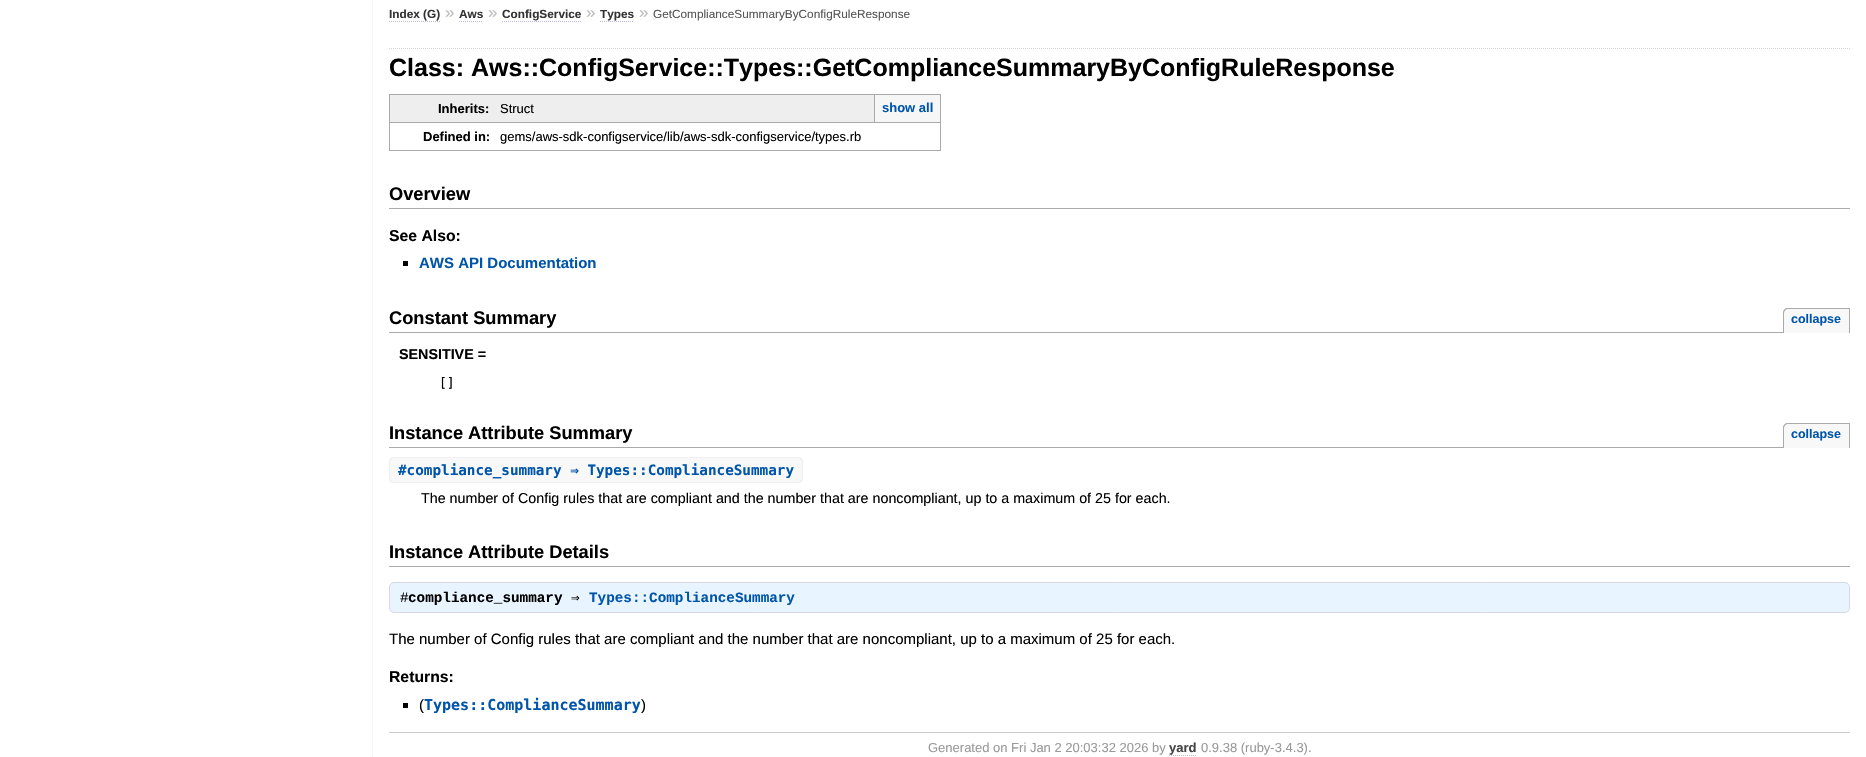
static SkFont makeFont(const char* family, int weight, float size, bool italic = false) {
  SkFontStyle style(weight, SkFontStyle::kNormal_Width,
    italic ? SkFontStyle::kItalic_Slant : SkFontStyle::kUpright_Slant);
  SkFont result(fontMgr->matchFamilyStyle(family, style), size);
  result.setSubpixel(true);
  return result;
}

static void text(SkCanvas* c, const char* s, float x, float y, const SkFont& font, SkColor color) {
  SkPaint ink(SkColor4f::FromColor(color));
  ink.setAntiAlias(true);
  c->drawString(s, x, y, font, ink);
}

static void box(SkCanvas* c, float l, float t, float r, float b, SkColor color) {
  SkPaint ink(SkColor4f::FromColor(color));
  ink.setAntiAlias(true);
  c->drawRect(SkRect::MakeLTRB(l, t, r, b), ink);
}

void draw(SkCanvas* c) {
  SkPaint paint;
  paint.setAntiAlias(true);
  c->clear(0xffffffff);
  paint.setStyle(SkPaint::kStroke_Style);
  paint.setStrokeWidth(1);
  paint.setColor(0xffeeeeee);
  paint.setPathEffect(SkDashPathEffect::Make({{1, 1}}, 0));
  c->drawPath(SkPathBuilder().moveTo(372.5f, 0).lineTo(372.5f, 757).detach(), paint);
  paint.setPathEffect(nullptr);
  SkFont face1 = makeFont("Liberation Sans", 700, 11.8f);
  text(c, "Index (G)", 389, 18, face1, 0xff333333);
  paint.setColor(0xffbbbbdd);
  paint.setPathEffect(SkDashPathEffect::Make({{1, 1}}, 0));
  c->drawPath(SkPathBuilder().moveTo(389, 21.5f).lineTo(440, 21.5f).detach(), paint);
  paint.setPathEffect(nullptr);
  SkFont face2 = makeFont("Liberation Sans", 400, 17);
  text(c, "»", 445, 18, face2, 0xffbbbbbb);
  text(c, "Aws", 459, 18, face1, 0xff333333);
  paint.setPathEffect(SkDashPathEffect::Make({{1, 1}}, 0));
  c->drawPath(SkPathBuilder().moveTo(459, 21.5f).lineTo(483, 21.5f).detach(), paint);
  paint.setPathEffect(nullptr);
  text(c, "»", 488, 18, face2, 0xffbbbbbb);
  text(c, "ConfigService", 502, 18, face1, 0xff333333);
  paint.setPathEffect(SkDashPathEffect::Make({{1, 1}}, 0));
  c->drawPath(SkPathBuilder().moveTo(502, 21.5f).lineTo(581, 21.5f).detach(), paint);
  paint.setPathEffect(nullptr);
  text(c, "»", 586, 18, face2, 0xffbbbbbb);
  text(c, "Types", 600, 18, face1, 0xff333333);
  paint.setPathEffect(SkDashPathEffect::Make({{1, 1}}, 0));
  c->drawPath(SkPathBuilder().moveTo(600, 21.5f).lineTo(634, 21.5f).detach(), paint);
  paint.setPathEffect(nullptr);
  text(c, "»", 639, 18, face2, 0xffbbbbbb);
  SkFont face3 = makeFont("Liberation Sans", 400, 11.8f);
  text(c, "GetComplianceSummaryByConfigRuleResponse", 653, 18, face3, 0xff555555);
  paint.setColor(0xffd5d5d5);
  paint.setPathEffect(SkDashPathEffect::Make({{1, 1}}, 0));
  c->drawPath(SkPathBuilder().moveTo(389, 48.5f).lineTo(1850, 48.5f).detach(), paint);
  paint.setPathEffect(nullptr);
  SkFont face4 = makeFont("Liberation Sans", 700, 25);
  text(c, "Class: Aws::ConfigService::Types::GetComplianceSummaryByConfigRuleResponse", 389, 76, face4, 0xff000000);
  box(c, 390, 95, 874, 122, 0xffeeeeee);
  box(c, 389, 94, 941, 95, 0xffaaaaaa);
  box(c, 389, 94, 390, 122, 0xffaaaaaa);
  SkFont face5 = makeFont("Liberation Sans", 700, 13);
  text(c, "Inherits:", 438, 113, face5, 0xff000000);
  box(c, 389, 122, 941, 123, 0xffaaaaaa);
  box(c, 940, 94, 941, 151, 0xffaaaaaa);
  SkFont face6 = makeFont("Liberation Sans", 400, 13);
  text(c, "Struct", 500, 113, face6, 0xff000000);
  box(c, 875, 95, 940, 122, 0xfff6f6f6);
  box(c, 874, 95, 875, 122, 0xffaaaaaa);
  text(c, "show all", 882, 112, face5, 0xff0055aa);
  box(c, 389, 150, 500, 151, 0xffaaaaaa);
  box(c, 389, 122, 390, 151, 0xffaaaaaa);
  text(c, "Defined in:", 423, 141, face5, 0xff000000);
  box(c, 500, 150, 941, 151, 0xffaaaaaa);
  text(c, "gems/aws-sdk-configservice/lib/aws-sdk-configservice/types.rb", 500, 141, face6, 0xff000000);
  box(c, 389, 208, 1850, 209, 0xffaaaaaa);
  SkFont face7 = makeFont("Liberation Sans", 700, 18.25f);
  text(c, "Overview", 389, 200, face7, 0xff000000);
  SkFont face8 = makeFont("Liberation Sans", 700, 15.75f);
  text(c, "See Also:", 389, 241, face8, 0xff000000);
  box(c, 403, 261, 408, 266, 0xff000000);
  SkFont face9 = makeFont("Liberation Sans", 700, 15);
  text(c, "AWS API Documentation", 419, 268, face9, 0xff0055aa);
  box(c, 389, 332, 1783, 333, 0xffaaaaaa);
  text(c, "Constant Summary", 389, 324, face7, 0xff000000);
  paint.setStyle(SkPaint::kFill_Style);
  paint.setColor(0xfff8f8f8);
  c->drawPath(SkPathBuilder().moveTo(1788, 308).lineTo(1850, 308).lineTo(1850, 333).lineTo(1783, 333).lineTo(1783, 313).cubicTo(1783, 310, 1785, 308, 1788, 308).close().detach(), paint);
  paint.setColor(0xffaaaaaa);
  c->drawPath(SkPathBuilder(SkPathFillType::kEvenOdd).moveTo(1788, 308).lineTo(1850, 308).lineTo(1850, 333).lineTo(1783, 333).lineTo(1783, 313).cubicTo(1783, 310, 1785, 308, 1788, 308).close().moveTo(1788, 309).lineTo(1849, 309).lineTo(1849, 333).lineTo(1784, 333).lineTo(1784, 313).cubicTo(1784, 311, 1786, 309, 1788, 309).close().detach(), paint);
  SkFont face10 = makeFont("Liberation Sans", 700, 12.5f);
  text(c, "collapse", 1791, 323, face10, 0xff0055aa);
  SkFont face11 = makeFont("Liberation Sans", 700, 14.3f);
  text(c, "SENSITIVE =", 399, 359, face11, 0xff000000);
  SkFont face12 = makeFont("DejaVu Sans Mono", 400, 13);
  text(c, "[]", 439, 387, face12, 0xff000000);
  box(c, 389, 447, 1783, 448, 0xffaaaaaa);
  text(c, "Instance Attribute Summary", 389, 439, face7, 0xff000000);
  paint.setColor(0xfff8f8f8);
  c->drawPath(SkPathBuilder().moveTo(1788, 423).lineTo(1850, 423).lineTo(1850, 448).lineTo(1783, 448).lineTo(1783, 428).cubicTo(1783, 425, 1785, 423, 1788, 423).close().detach(), paint);
  paint.setColor(0xffaaaaaa);
  c->drawPath(SkPathBuilder(SkPathFillType::kEvenOdd).moveTo(1788, 423).lineTo(1850, 423).lineTo(1850, 448).lineTo(1783, 448).lineTo(1783, 428).cubicTo(1783, 425, 1785, 423, 1788, 423).close().moveTo(1788, 424).lineTo(1849, 424).lineTo(1849, 448).lineTo(1784, 448).lineTo(1784, 428).cubicTo(1784, 426, 1786, 424, 1788, 424).close().detach(), paint);
  text(c, "collapse", 1791, 438, face10, 0xff0055aa);
  paint.setColor(0xfff8f8f8);
  c->drawPath(SkPathBuilder().moveTo(394, 457).lineTo(406, 457).lineTo(406, 483).lineTo(394, 483).cubicTo(391, 483, 389, 481, 389, 478).lineTo(389, 462).cubicTo(389, 459, 391, 457, 394, 457).close().detach(), paint);
  paint.setColor(0xfff0f0f0);
  c->drawPath(SkPathBuilder(SkPathFillType::kEvenOdd).moveTo(394, 457).lineTo(406, 457).lineTo(406, 483).lineTo(394, 483).cubicTo(391, 483, 389, 481, 389, 478).lineTo(389, 462).cubicTo(389, 459, 391, 457, 394, 457).close().moveTo(394, 458).lineTo(406, 458).lineTo(406, 482).lineTo(394, 482).cubicTo(392, 482, 390, 480, 390, 478).lineTo(390, 462).cubicTo(390, 460, 392, 458, 394, 458).close().detach(), paint);
  box(c, 406, 458, 561, 482, 0xfff8f8f8);
  paint.setColor(0xfff8f8f8);
  c->drawPath(SkPathBuilder().moveTo(561, 457).lineTo(798, 457).cubicTo(801, 457, 803, 459, 803, 462).lineTo(803, 478).cubicTo(803, 481, 801, 483, 798, 483).lineTo(561, 483).close().detach(), paint);
  paint.setColor(0xfff0f0f0);
  c->drawPath(SkPathBuilder(SkPathFillType::kEvenOdd).moveTo(561, 457).lineTo(798, 457).cubicTo(801, 457, 803, 459, 803, 462).lineTo(803, 478).cubicTo(803, 481, 801, 483, 798, 483).lineTo(561, 483).close().moveTo(561, 458).lineTo(798, 458).cubicTo(800, 458, 802, 460, 802, 462).lineTo(802, 478).cubicTo(802, 480, 800, 482, 798, 482).lineTo(561, 482).close().detach(), paint);
  SkFont face13 = makeFont("DejaVu Sans Mono", 700, 14.3f);
  text(c, "#compliance_summary ⇒ Types::ComplianceSummary", 398, 475, face13, 0xff0055aa);
  box(c, 406, 457, 561, 458, 0xfff0f0f0);
  box(c, 406, 482, 561, 483, 0xfff0f0f0);
  SkFont face14 = makeFont("Liberation Sans", 400, 14.3f);
  text(c, "The number of Config rules that are compliant and the number that are noncompliant, up to a maximum of 25 for each.", 421, 503, face14, 0xff000000);
  box(c, 389, 566, 1850, 567, 0xffaaaaaa);
  text(c, "Instance Attribute Details", 389, 558, face7, 0xff000000);
  paint.setColor(0xffe8f4ff);
  c->drawRoundRect(SkRect::MakeLTRB(389.5f, 582.5f, 1849.5f, 612.5f), 4.5f, 4.5f, paint);
  paint.setStyle(SkPaint::kStroke_Style);
  paint.setColor(0xffd8d8e5);
  c->drawRoundRect(SkRect::MakeLTRB(389.5f, 582.5f, 1849.5f, 612.5f), 4.5f, 4.5f, paint);
  SkFont face15 = makeFont("Liberation Mono", 400, 14.3f);
  text(c, "#", 400, 602, face15, 0xff000000);
  SkFont face16 = makeFont("Liberation Mono", 700, 14.3f);
  text(c, "compliance_summary", 408, 602, face16, 0xff000000);
  SkFont face17 = makeFont("DejaVu Sans Mono", 400, 14.3f);
  text(c, "⇒", 571, 602, face17, 0xff000000);
  text(c, "Types::ComplianceSummary", 589, 602, face16, 0xff0055aa);
  SkFont face18 = makeFont("Liberation Sans", 400, 15);
  text(c, "The number of Config rules that are compliant and the number that are noncompliant, up to a maximum of 25 for each.", 389, 644, face18, 0xff000000);
  text(c, "Returns:", 389, 682, face8, 0xff000000);
  box(c, 403, 703, 408, 708, 0xff000000);
  text(c, "(", 419, 710, face18, 0xff000000);
  SkFont face19 = makeFont("DejaVu Sans Mono", 700, 15);
  text(c, "Types::ComplianceSummary", 424, 710, face19, 0xff0055aa);
  text(c, ")", 641, 710, face18, 0xff000000);
  box(c, 389, 732, 1850, 733, 0xffcccccc);
  text(c, "Generated on Fri Jan 2 20:03:32 2026 by", 928, 752, face6, 0xff999999);
  text(c, "yard", 1169, 752, face5, 0xff444444);
  paint.setColor(0xffbbbbdd);
  paint.setPathEffect(SkDashPathEffect::Make({{1, 1}}, 0));
  c->drawPath(SkPathBuilder().moveTo(1169, 755.5f).lineTo(1197, 755.5f).detach(), paint);
  paint.setPathEffect(nullptr);
  text(c, "0.9.38 (ruby-3.4.3).", 1201, 752, face6, 0xff999999);
}
